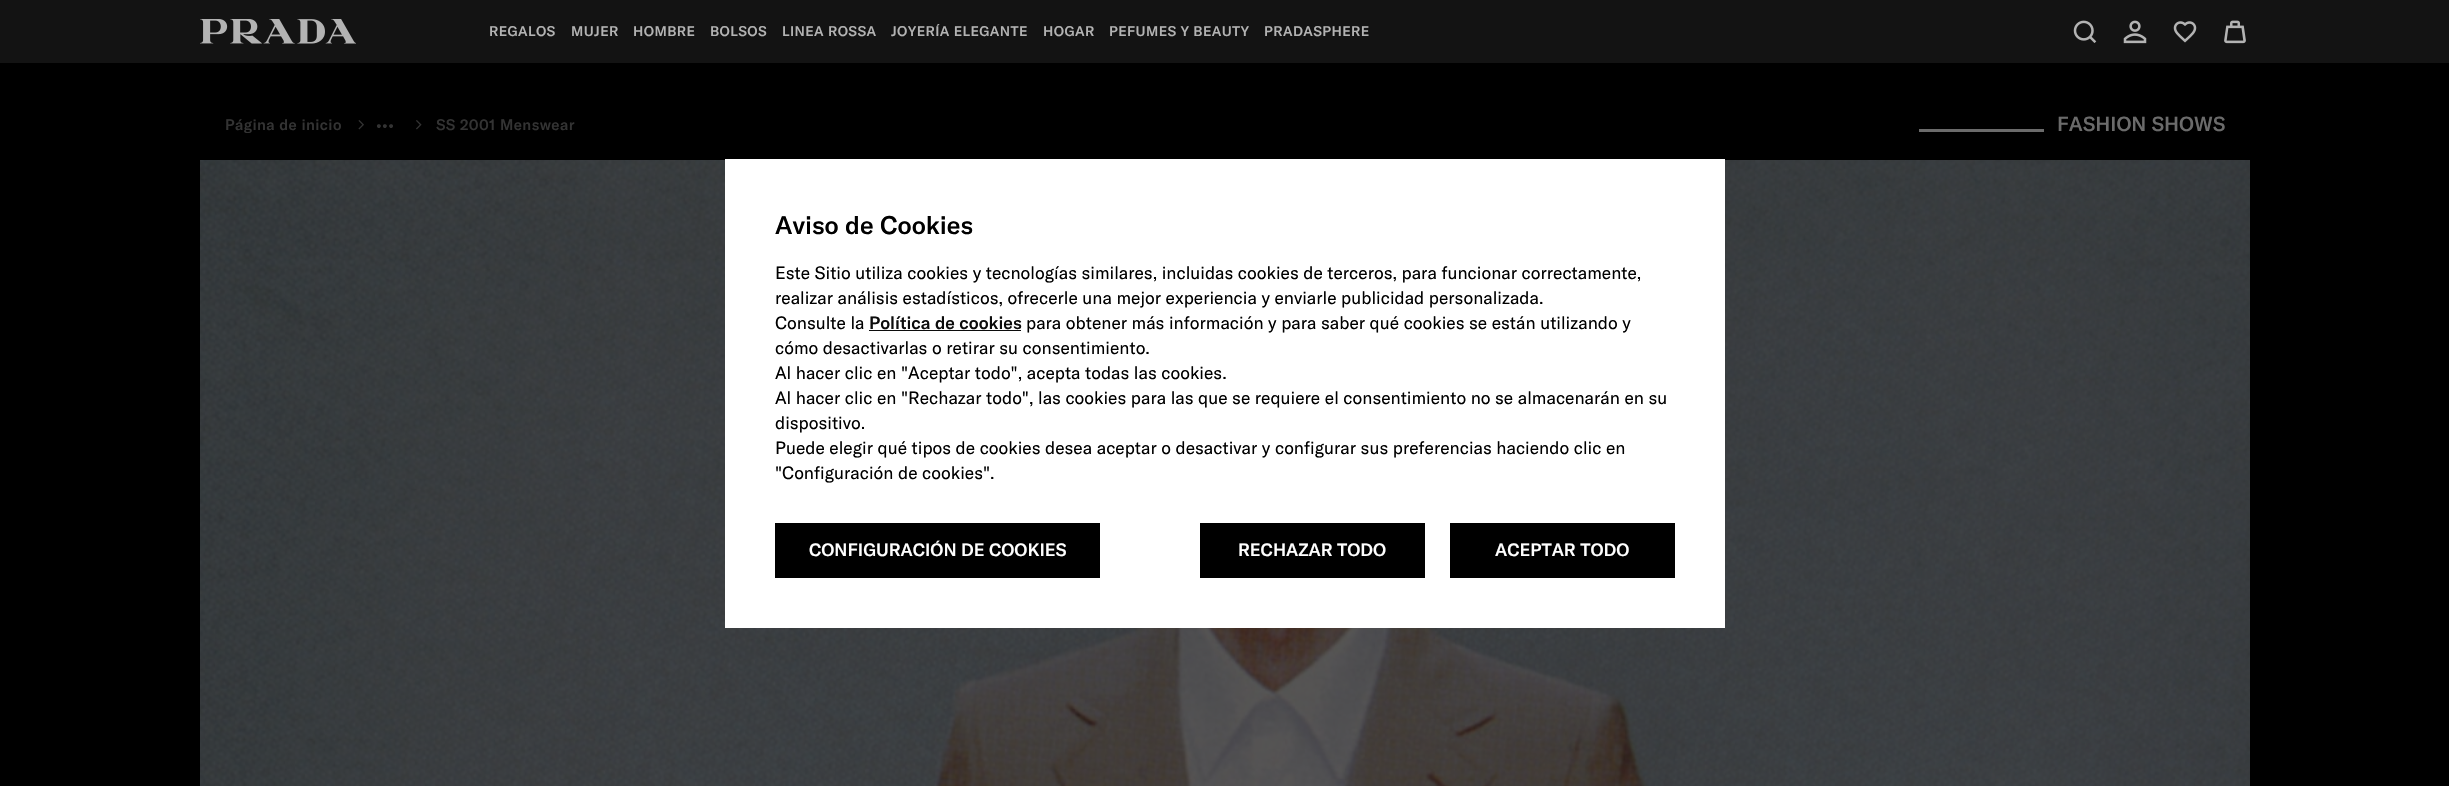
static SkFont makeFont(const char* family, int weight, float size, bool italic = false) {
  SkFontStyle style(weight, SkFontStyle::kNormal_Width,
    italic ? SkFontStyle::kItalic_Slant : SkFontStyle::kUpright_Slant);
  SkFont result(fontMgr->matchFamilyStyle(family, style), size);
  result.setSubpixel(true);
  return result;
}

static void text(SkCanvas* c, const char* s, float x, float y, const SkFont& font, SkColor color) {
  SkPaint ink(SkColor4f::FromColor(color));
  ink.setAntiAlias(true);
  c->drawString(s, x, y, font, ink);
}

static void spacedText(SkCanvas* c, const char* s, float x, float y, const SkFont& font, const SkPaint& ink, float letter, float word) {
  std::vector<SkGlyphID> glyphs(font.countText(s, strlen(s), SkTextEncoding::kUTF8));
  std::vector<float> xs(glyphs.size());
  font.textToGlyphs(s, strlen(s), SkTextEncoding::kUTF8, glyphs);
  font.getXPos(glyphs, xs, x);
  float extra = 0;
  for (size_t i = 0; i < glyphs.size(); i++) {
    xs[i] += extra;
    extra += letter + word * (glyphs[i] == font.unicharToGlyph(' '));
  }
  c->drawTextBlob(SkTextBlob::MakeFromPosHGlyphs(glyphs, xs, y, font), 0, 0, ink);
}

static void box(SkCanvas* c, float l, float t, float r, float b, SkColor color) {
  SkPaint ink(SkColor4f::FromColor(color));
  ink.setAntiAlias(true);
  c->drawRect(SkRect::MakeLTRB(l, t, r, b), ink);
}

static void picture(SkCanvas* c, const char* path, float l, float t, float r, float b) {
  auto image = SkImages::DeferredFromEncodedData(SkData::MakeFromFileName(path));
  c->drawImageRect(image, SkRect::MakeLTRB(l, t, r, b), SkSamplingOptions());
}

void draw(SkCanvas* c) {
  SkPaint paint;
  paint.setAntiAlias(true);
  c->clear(0xff000000);
  box(c, 0, 0, 2449, 63, 0xff131313);
  picture(c, "img_01.png", 200, 19, 356, 44);
  SkFont face1 = makeFont("GT America", 500, 13.75f);
  paint.setColor(0xffb3b3b3);
  spacedText(c, "REGALOS", 489, 36, face1, paint, 0.4f, 0);
  spacedText(c, "MUJER", 571, 36, face1, paint, 0.4f, 0);
  spacedText(c, "HOMBRE", 633, 36, face1, paint, 0.4f, 0);
  spacedText(c, "BOLSOS", 710, 36, face1, paint, 0.4f, 0);
  spacedText(c, "LINEA ROSSA", 782, 36, face1, paint, 0.4f, 0);
  spacedText(c, "JOYERÍA ELEGANTE", 891, 36, face1, paint, 0.4f, 0);
  spacedText(c, "HOGAR", 1043, 36, face1, paint, 0.4f, 0);
  spacedText(c, "PEFUMES Y BEAUTY", 1109, 36, face1, paint, 0.4f, 0);
  spacedText(c, "PRADASPHERE", 1264, 36, face1, paint, 0.4f, 0);
  picture(c, "img_02.png", 2073, 20, 2097, 43);
  picture(c, "img_03.png", 2123, 20, 2147, 44);
  picture(c, "img_04.png", 2173, 21, 2197, 43);
  picture(c, "img_05.png", 2224, 20, 2246, 44);
  SkFont face2 = makeFont("GT America", 500, 15);
  paint.setColor(0xff333333);
  spacedText(c, "Página de inicio", 225, 130, face2, paint, 0.4f, 0);
  picture(c, "img_06.png", 358, 120, 364, 130);
  spacedText(c, "•••", 376, 130, face2, paint, 0.4f, 0);
  picture(c, "img_07.png", 416, 120, 422, 130);
  spacedText(c, "SS 2001 Menswear", 436, 130, face2, paint, 0.4f, 0);
  box(c, 1919, 129, 2044, 132, 0xff6b6b6b);
  SkFont face3 = makeFont("GT America", 500, 20);
  text(c, "FASHION SHOWS", 2057, 131, face3, 0xff6b6b6b);
  picture(c, "img_08.png", 200, 160, 2250, 786);
  box(c, 725, 159, 1725, 628, 0xffffffff);
  SkFont face4 = makeFont("GT America", 500, 25);
  text(c, "Aviso de Cookies", 775, 234, face4, 0xff000000);
  SkFont face5 = makeFont("GT America", 400, 17.5f);
  text(c, "Este Sitio utiliza cookies y tecnologías similares, incluidas cookies de terceros, para funcionar correctamente,", 775, 279, face5, 0xff000000);
  text(c, "realizar análisis estadísticos, ofrecerle una mejor experiencia y enviarle publicidad personalizada.", 775, 304, face5, 0xff000000);
  text(c, "Consulte la", 775, 329, face5, 0xff000000);
  SkFont face6 = makeFont("GT America", 500, 17.5f);
  text(c, "Política de cookies", 869, 329, face6, 0xff0c0c0c);
  box(c, 869, 330, 1021, 331, 0xff0c0c0c);
  text(c, "para obtener más información y para saber qué cookies se están utilizando y", 1026, 329, face5, 0xff000000);
  text(c, "cómo desactivarlas o retirar su consentimiento.", 775, 354, face5, 0xff000000);
  text(c, "Al hacer clic en \"Aceptar todo\", acepta todas las cookies.", 775, 379, face5, 0xff000000);
  text(c, "Al hacer clic en \"Rechazar todo\", las cookies para las que se requiere el consentimiento no se almacenarán en su", 775, 404, face5, 0xff000000);
  text(c, "dispositivo.", 775, 429, face5, 0xff000000);
  text(c, "Puede elegir qué tipos de cookies desea aceptar o desactivar y configurar sus preferencias haciendo clic en", 775, 454, face5, 0xff000000);
  text(c, "\"Configuración de cookies\".", 775, 479, face5, 0xff000000);
  box(c, 775, 523, 1100, 578, 0xff000000);
  text(c, "CONFIGURACIÓN DE COOKIES", 809, 556, face6, 0xffffffff);
  box(c, 1200, 523, 1425, 578, 0xff000000);
  text(c, "RECHAZAR TODO", 1238, 556, face6, 0xffffffff);
  box(c, 1450, 523, 1675, 578, 0xff000000);
  text(c, "ACEPTAR TODO", 1495, 556, face6, 0xffffffff);
}
